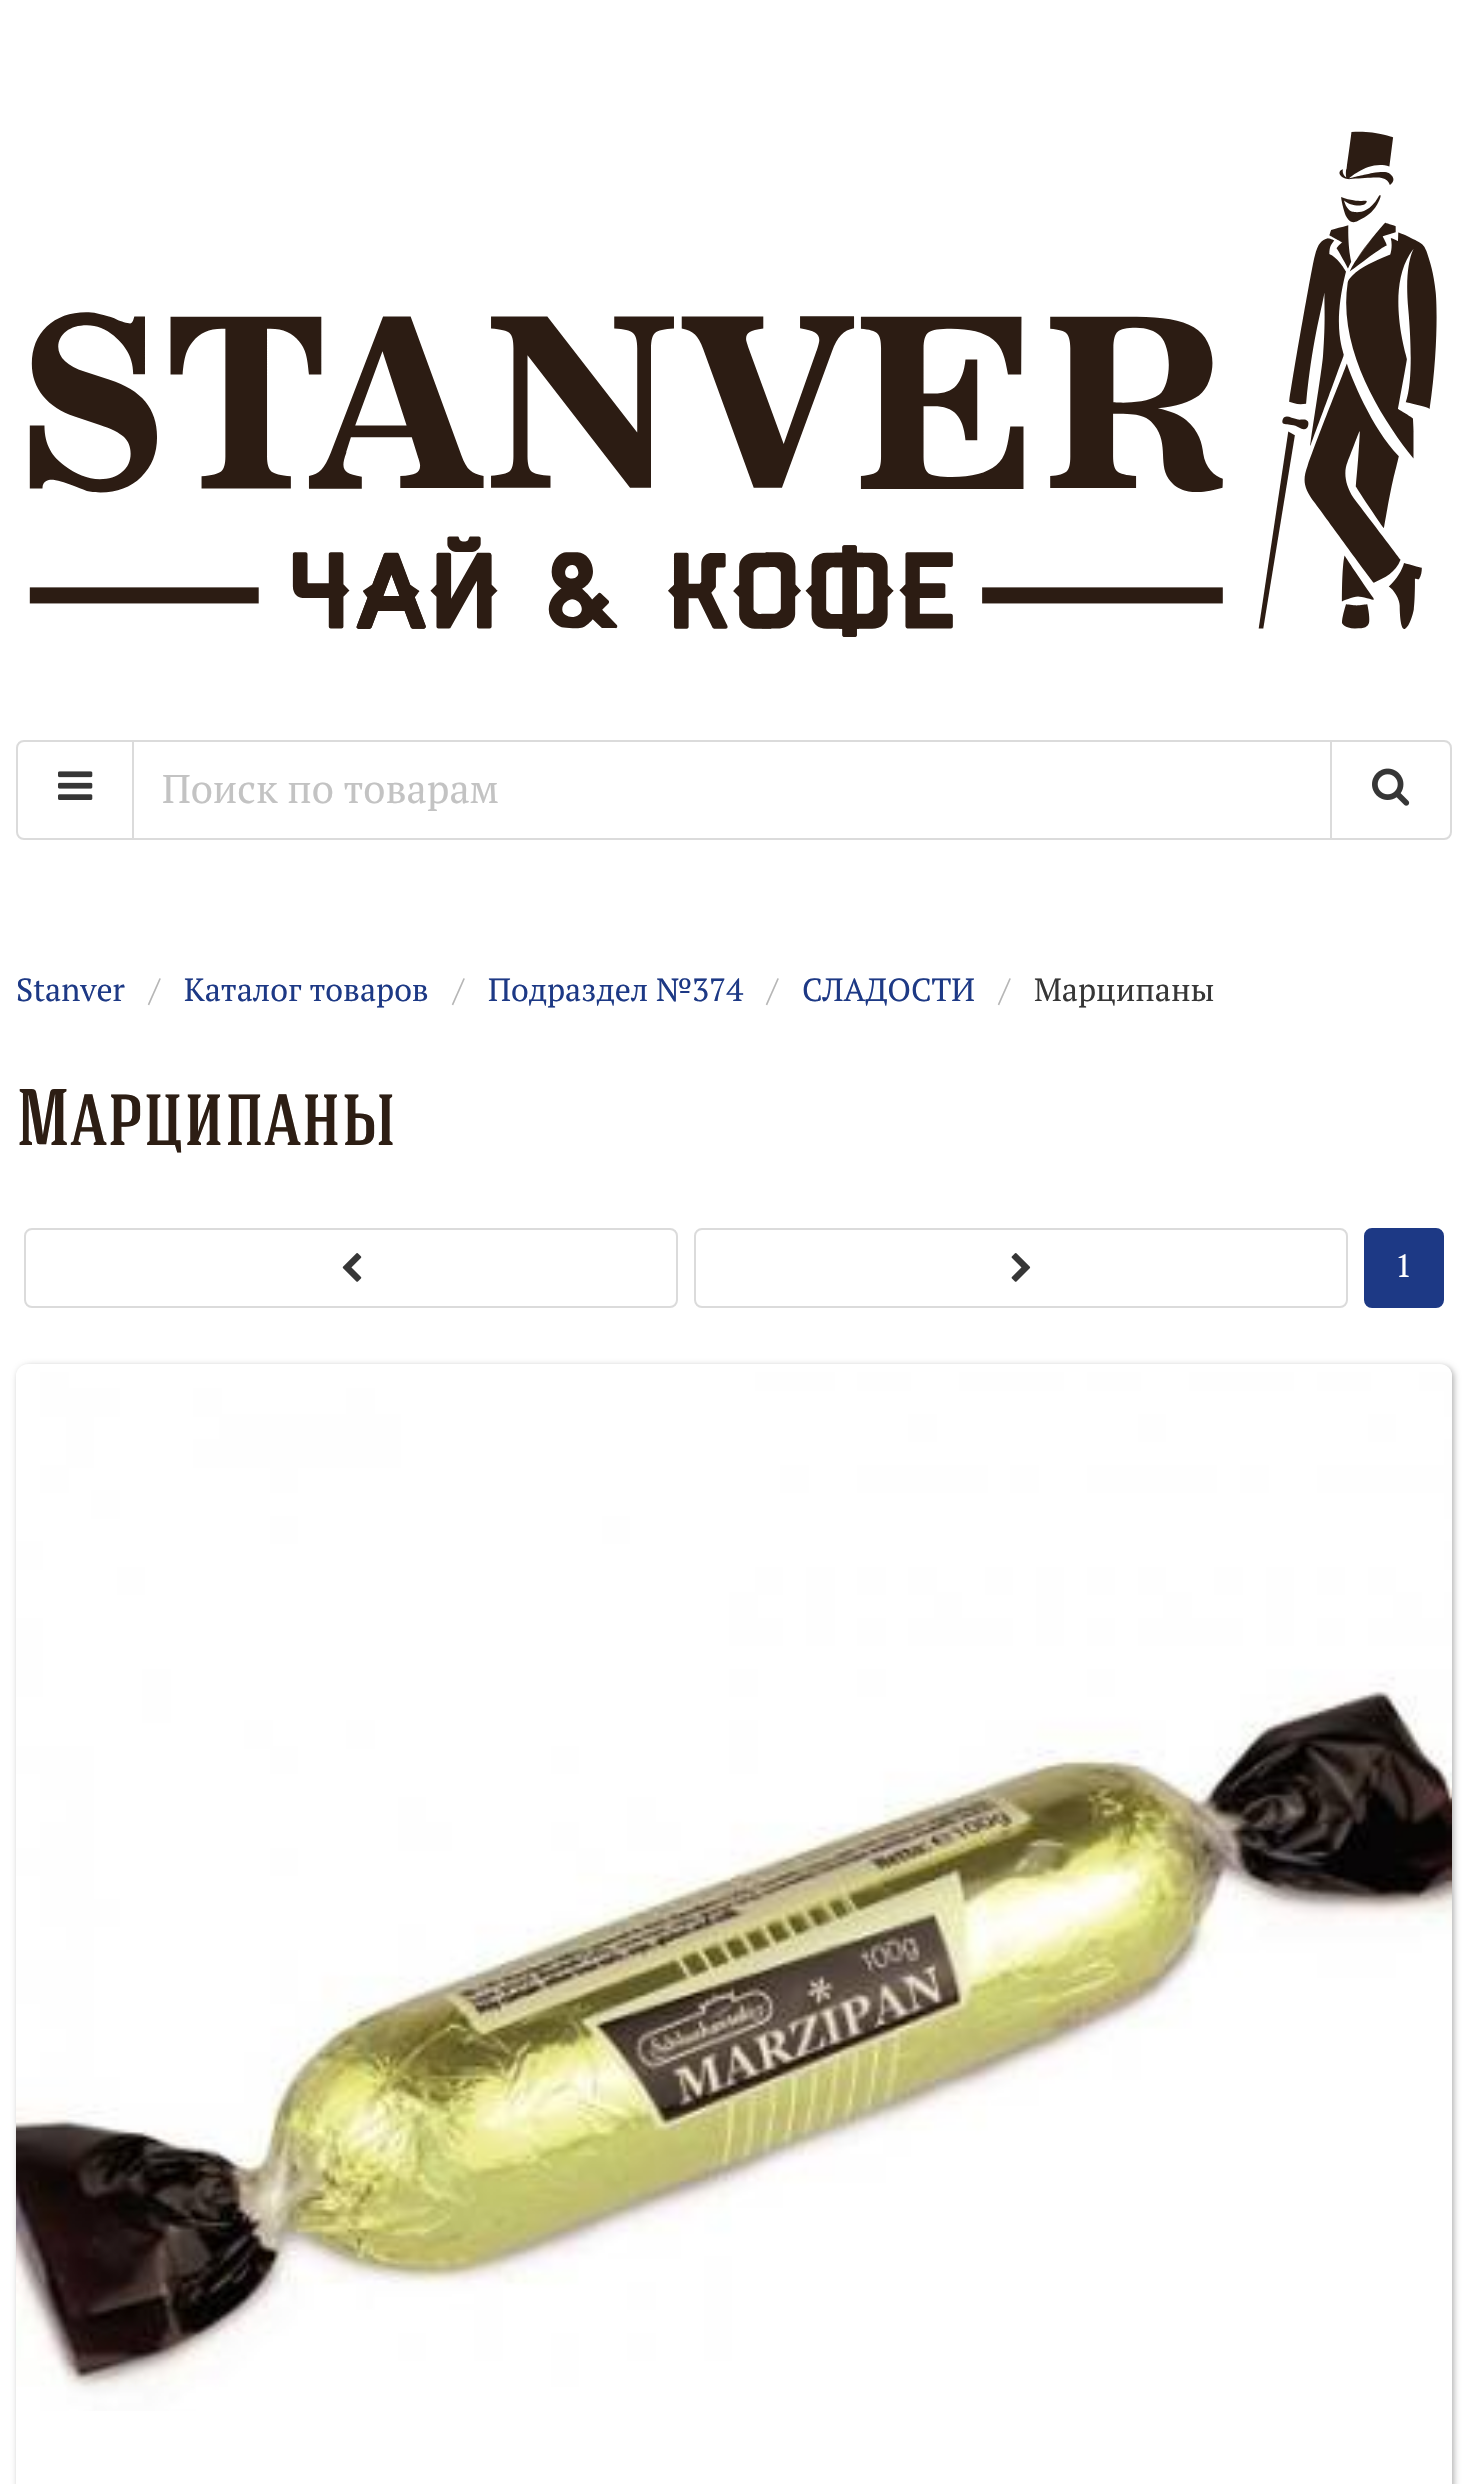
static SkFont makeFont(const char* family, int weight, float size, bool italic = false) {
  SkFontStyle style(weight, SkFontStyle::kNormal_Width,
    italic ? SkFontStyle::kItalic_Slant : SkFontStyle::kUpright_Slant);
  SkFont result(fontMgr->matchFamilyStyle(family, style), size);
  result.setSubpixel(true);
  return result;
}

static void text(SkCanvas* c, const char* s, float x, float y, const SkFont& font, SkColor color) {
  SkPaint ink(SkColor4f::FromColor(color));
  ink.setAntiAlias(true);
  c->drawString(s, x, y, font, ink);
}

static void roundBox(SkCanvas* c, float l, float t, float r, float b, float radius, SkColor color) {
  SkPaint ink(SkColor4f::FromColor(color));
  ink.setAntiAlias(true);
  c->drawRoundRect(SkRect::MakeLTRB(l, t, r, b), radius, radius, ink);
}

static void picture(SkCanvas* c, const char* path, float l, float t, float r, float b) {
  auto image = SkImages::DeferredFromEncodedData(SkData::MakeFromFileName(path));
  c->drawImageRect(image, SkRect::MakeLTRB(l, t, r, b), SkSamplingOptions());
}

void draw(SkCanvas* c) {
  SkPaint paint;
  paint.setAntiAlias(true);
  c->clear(0xffffffff);
  picture(c, "img_01.png", 29, 131, 1437, 637);
  paint.setStyle(SkPaint::kStroke_Style);
  paint.setStrokeWidth(2);
  paint.setColor(0xffdbdbdb);
  c->drawPath(SkPathBuilder().moveTo(24, 741).lineTo(133, 741).lineTo(133, 839).lineTo(24, 839).cubicTo(20, 839, 17, 836, 17, 832).lineTo(17, 748).cubicTo(17, 744, 20, 741, 24, 741).close().detach(), paint);
  picture(c, "img_02.png", 58, 771, 93, 800);
  c->drawRect(SkRect::MakeLTRB(133, 741, 1331, 839), paint);
  SkFont face1 = makeFont("PT Serif", 400, 40);
  text(c, "Поиск по товарам", 162, 803, face1, 0xffc3c3c3);
  paint.setStyle(SkPaint::kFill_Style);
  paint.setColor(0xffffffff);
  c->drawPath(SkPathBuilder().moveTo(1331, 741).lineTo(1444, 741).cubicTo(1448, 741, 1451, 744, 1451, 748).lineTo(1451, 832).cubicTo(1451, 836, 1448, 839, 1444, 839).lineTo(1331, 839).close().detach(), paint);
  paint.setStyle(SkPaint::kStroke_Style);
  paint.setColor(0xffdbdbdb);
  c->drawPath(SkPathBuilder().moveTo(1331, 741).lineTo(1444, 741).cubicTo(1448, 741, 1451, 744, 1451, 748).lineTo(1451, 832).cubicTo(1451, 836, 1448, 839, 1444, 839).lineTo(1331, 839).close().detach(), paint);
  picture(c, "img_03.png", 1372, 768, 1410, 806);
  SkFont face2 = makeFont("PT Serif", 400, 32);
  text(c, "Stanver", 16, 1001, face2, 0xff1d3985);
  text(c, "/", 149, 1001, face2, 0xffb5b5b5);
  text(c, "Каталог товаров", 184, 1001, face2, 0xff1d3985);
  text(c, "/", 453, 1001, face2, 0xffb5b5b5);
  text(c, "Подраздел №374", 488, 1001, face2, 0xff1d3985);
  text(c, "/", 767, 1001, face2, 0xffb5b5b5);
  text(c, "СЛАДОСТИ", 802, 1001, face2, 0xff1d3985);
  text(c, "/", 999, 1001, face2, 0xffb5b5b5);
  text(c, "Марципаны", 1034, 1001, face2, 0xff363636);
  SkFont face3 = makeFont("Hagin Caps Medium", 500, 80);
  text(c, "Марципаны", 16, 1145, face3, 0xff2d1e14);
  c->drawRoundRect(SkRect::MakeLTRB(25, 1229, 677, 1307), 7, 7, paint);
  picture(c, "img_04.png", 342, 1253, 362, 1282);
  c->drawRoundRect(SkRect::MakeLTRB(695, 1229, 1347, 1307), 7, 7, paint);
  picture(c, "img_05.png", 1011, 1253, 1031, 1282);
  paint.setStyle(SkPaint::kFill_Style);
  paint.setColor(0xff1d3985);
  c->drawRoundRect(SkRect::MakeLTRB(1365, 1229, 1443, 1307), 7, 7, paint);
  paint.setStyle(SkPaint::kStroke_Style);
  c->drawRoundRect(SkRect::MakeLTRB(1365, 1229, 1443, 1307), 7, 7, paint);
  text(c, "1", 1395, 1277, face2, 0xffffffff);
  paint.setStyle(SkPaint::kFill_Style);
  paint.setColor(0x4d000000);
  paint.setMaskFilter(SkMaskFilter::MakeBlur(kNormal_SkBlurStyle, 3));
  c->drawRoundRect(SkRect::MakeLTRB(18, 1366, 1454, 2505), 12, 12, paint);
  paint.setMaskFilter(nullptr);
  roundBox(c, 16, 1364, 1452, 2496, 12, 0xffffffff);
  picture(c, "img_06.png", 16, 1372, 1452, 2411);
}
